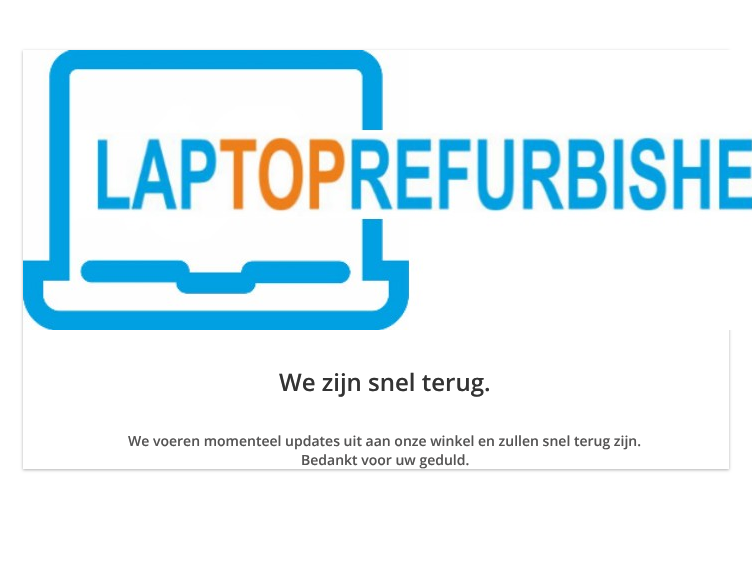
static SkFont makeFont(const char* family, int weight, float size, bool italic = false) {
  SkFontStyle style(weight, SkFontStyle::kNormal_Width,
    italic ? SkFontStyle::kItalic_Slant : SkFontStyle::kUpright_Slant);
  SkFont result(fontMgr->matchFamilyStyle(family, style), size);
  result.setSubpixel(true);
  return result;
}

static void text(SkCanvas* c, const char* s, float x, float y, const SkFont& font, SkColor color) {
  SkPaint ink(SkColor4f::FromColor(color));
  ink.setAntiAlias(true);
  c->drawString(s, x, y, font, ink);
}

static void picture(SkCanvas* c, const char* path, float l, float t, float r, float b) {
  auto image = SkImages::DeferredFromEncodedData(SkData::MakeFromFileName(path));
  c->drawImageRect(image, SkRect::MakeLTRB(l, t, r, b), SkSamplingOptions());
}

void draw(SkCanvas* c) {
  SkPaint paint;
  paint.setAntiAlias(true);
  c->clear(0xffffffff);
  c->save();
  c->clipPath(SkPathBuilder(SkPathFillType::kEvenOdd).moveTo(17, 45).lineTo(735, 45).lineTo(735, 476).lineTo(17, 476).close().moveTo(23, 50).lineTo(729, 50).lineTo(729, 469).lineTo(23, 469).close().detach(), true);
  paint.setColor(0x4d000000);
  paint.setMaskFilter(SkMaskFilter::MakeBlur(kNormal_SkBlurStyle, 1.5f));
  c->drawRect(SkRect::MakeLTRB(23, 51, 729, 470), paint);
  paint.setMaskFilter(nullptr);
  c->restore();
  picture(c, "img_01.png", 23, 50, 752, 330);
  SkFont face1 = makeFont("Open Sans", 600, 24);
  text(c, "We zijn snel terug.", 279, 391, face1, 0xff333333);
  SkFont face2 = makeFont("Open Sans", 600, 14);
  text(c, "We voeren momenteel updates uit aan onze winkel en zullen snel terug zijn.", 128, 446, face2, 0xff555454);
  text(c, "Bedankt voor uw geduld.", 301, 465, face2, 0xff555454);
}
